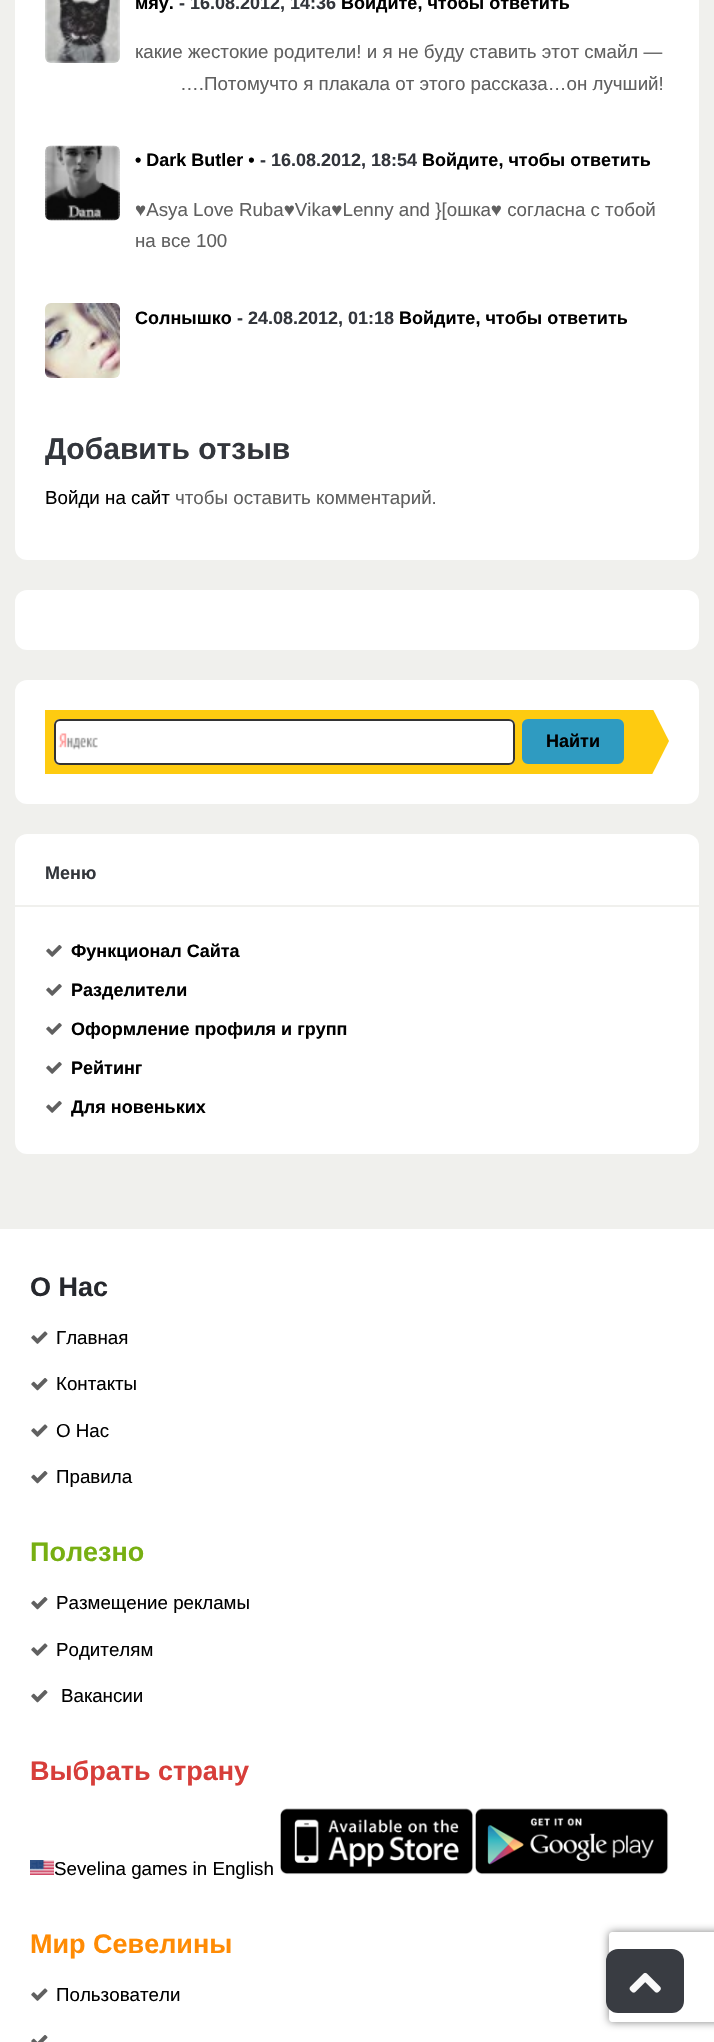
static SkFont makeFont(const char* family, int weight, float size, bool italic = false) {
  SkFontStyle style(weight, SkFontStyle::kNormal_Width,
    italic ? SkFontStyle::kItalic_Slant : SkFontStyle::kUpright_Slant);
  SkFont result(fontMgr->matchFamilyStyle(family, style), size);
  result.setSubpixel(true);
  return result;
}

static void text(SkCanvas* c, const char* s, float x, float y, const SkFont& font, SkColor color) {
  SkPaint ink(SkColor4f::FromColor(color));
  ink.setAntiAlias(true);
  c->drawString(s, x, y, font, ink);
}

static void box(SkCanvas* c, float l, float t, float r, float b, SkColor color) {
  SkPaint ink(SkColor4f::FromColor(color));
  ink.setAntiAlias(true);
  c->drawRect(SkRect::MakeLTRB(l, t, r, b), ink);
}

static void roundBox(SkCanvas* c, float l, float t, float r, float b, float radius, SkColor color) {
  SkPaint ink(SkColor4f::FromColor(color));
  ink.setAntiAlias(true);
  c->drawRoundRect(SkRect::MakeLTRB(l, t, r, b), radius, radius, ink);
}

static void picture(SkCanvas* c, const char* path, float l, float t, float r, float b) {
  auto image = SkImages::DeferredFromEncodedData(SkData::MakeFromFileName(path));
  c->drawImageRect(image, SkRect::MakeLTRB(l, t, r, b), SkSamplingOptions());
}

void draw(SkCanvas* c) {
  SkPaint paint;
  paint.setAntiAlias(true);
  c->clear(0xfff0f0ed);
  roundBox(c, 15, -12, 699, 560, 12, 0xffffffff);
  picture(c, "img_01.png", 45, 0, 120, 63);
  SkFont face1 = makeFont("Liberation Sans", 700, 18);
  text(c, "мяу.", 135, 9, face1, 0xff000000);
  text(c, "- 16.08.2012, 14:36", 179, 9, face1, 0xff33363c);
  text(c, "Войдите, чтобы ответить", 341, 9, face1, 0xff000000);
  SkFont face2 = makeFont("Liberation Sans", 400, 18.75f);
  text(c, "какие жестокие родители! и я не буду ставить этот смайл —", 135, 58, face2, 0xff606060);
  text(c, "….Потомучто я плакала от этого рассказа…он лучший!", 180, 90, face2, 0xff606060);
  picture(c, "img_02.png", 45, 145, 120, 221);
  text(c, "• Dark Butler •", 135, 166, face1, 0xff000000);
  text(c, "- 16.08.2012, 18:54", 260, 166, face1, 0xff33363c);
  text(c, "Войдите, чтобы ответить", 422, 166, face1, 0xff000000);
  text(c, "♥Asya Love Ruba♥Vika♥Lenny and }[oшка♥ согласна с тобой", 135, 216, face2, 0xff606060);
  text(c, "на все 100", 135, 247, face2, 0xff606060);
  picture(c, "img_03.png", 45, 303, 120, 378);
  text(c, "Солнышко", 135, 324, face1, 0xff000000);
  text(c, "- 24.08.2012, 01:18", 237, 324, face1, 0xff33363c);
  text(c, "Войдите, чтобы ответить", 399, 324, face1, 0xff000000);
  SkFont face3 = makeFont("Liberation Sans", 700, 30);
  text(c, "Добавить отзыв", 45, 459, face3, 0xff33363c);
  text(c, "Войди на сайт", 45, 504, face2, 0xff000000);
  text(c, "чтобы оставить комментарий.", 175, 504, face2, 0xff606060);
  roundBox(c, 15, 590, 699, 650, 12, 0xffffffff);
  roundBox(c, 15, 680, 699, 804, 12, 0xffffffff);
  box(c, 45, 710, 624, 774, 0xfffecb10);
  roundBox(c, 54, 719, 515, 765, 6, 0xffffffff);
  picture(c, "img_04.png", 58, 733, 98, 750);
  paint.setStyle(SkPaint::kStroke_Style);
  paint.setStrokeWidth(2);
  paint.setColor(0xff333333);
  c->drawRoundRect(SkRect::MakeLTRB(55, 720, 514, 764), 5, 5, paint);
  paint.setStyle(SkPaint::kFill_Style);
  paint.setColor(0xff2f9bc1);
  c->drawRoundRect(SkRect::MakeLTRB(523, 720, 623, 763), 5, 5, paint);
  paint.setStyle(SkPaint::kStroke_Style);
  c->drawRoundRect(SkRect::MakeLTRB(523, 720, 623, 763), 5, 5, paint);
  text(c, "Найти", 546, 747, face1, 0xff000000);
  c->save();
  c->clipRect(SkRect::MakeLTRB(624, 710, 669, 774));
  paint.setStyle(SkPaint::kFill_Style);
  paint.setColor(0xfffecb10);
  c->drawPath(SkPathBuilder().moveTo(624, 830).lineTo(624, 652).lineTo(669, 741).close().detach(), paint);
  c->restore();
  roundBox(c, 15, 834, 699, 1154, 12, 0xffffffff);
  box(c, 15, 905, 699, 907, 0xfff0f0ed);
  text(c, "Меню", 45, 879, face1, 0xff33363c);
  picture(c, "img_05.png", 46, 944, 62, 957);
  text(c, "Функционал Сайта", 71, 957, face1, 0xff000000);
  picture(c, "img_05.png", 46, 983, 62, 996);
  text(c, "Разделители", 71, 996, face1, 0xff000000);
  picture(c, "img_05.png", 46, 1022, 62, 1035);
  text(c, "Оформление профиля и групп", 71, 1035, face1, 0xff000000);
  picture(c, "img_05.png", 46, 1061, 62, 1074);
  text(c, "Рейтинг", 71, 1074, face1, 0xff000000);
  picture(c, "img_05.png", 46, 1100, 62, 1113);
  text(c, "Для новеньких", 71, 1113, face1, 0xff000000);
  box(c, 0, 1229, 714, 2042, 0xffffffff);
  SkFont face4 = makeFont("Liberation Sans", 700, 27);
  text(c, "О Нас", 30, 1296, face4, 0xff26282d);
  picture(c, "img_06.png", 31, 1331, 48, 1344);
  text(c, "Главная", 56, 1344, face2, 0xff000000);
  picture(c, "img_07.png", 31, 1378, 48, 1391);
  text(c, "Контакты", 56, 1390, face2, 0xff000000);
  picture(c, "img_06.png", 31, 1424, 48, 1437);
  text(c, "О Нас", 56, 1437, face2, 0xff000000);
  picture(c, "img_07.png", 31, 1471, 48, 1484);
  text(c, "Правила", 56, 1483, face2, 0xff000000);
  text(c, "Полезно", 30, 1561, face4, 0xff77af12);
  picture(c, "img_07.png", 31, 1597, 48, 1610);
  text(c, "Размещение рекламы", 56, 1609, face2, 0xff000000);
  picture(c, "img_06.png", 31, 1643, 48, 1656);
  text(c, "Родителям", 56, 1656, face2, 0xff000000);
  picture(c, "img_07.png", 31, 1690, 48, 1703);
  text(c, "Вакансии", 61, 1702, face2, 0xff000000);
  text(c, "Выбрать страну", 30, 1780, face4, 0xffd73e3a);
  picture(c, "img_08.png", 30, 1860, 54, 1875);
  text(c, "Sevelina games in English", 54, 1875, face2, 0xff000000);
  picture(c, "img_09.png", 280, 1808, 474, 1875);
  picture(c, "img_10.png", 475, 1808, 669, 1875);
  text(c, "Мир Севелины", 30, 1953, face4, 0xffff8b04);
  picture(c, "img_06.png", 31, 1988, 48, 2001);
  text(c, "Пользователи", 56, 2001, face2, 0xff000000);
  picture(c, "img_11.png", 31, 2035, 48, 2042);
  c->save();
  c->clipPath(SkPathBuilder(SkPathFillType::kEvenOdd).moveTo(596, 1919).lineTo(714, 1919).lineTo(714, 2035).lineTo(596, 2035).close().moveTo(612, 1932).lineTo(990, 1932).cubicTo(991.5f, 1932, 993, 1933.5f, 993, 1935).lineTo(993, 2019).cubicTo(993, 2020.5f, 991.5f, 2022, 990, 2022).lineTo(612, 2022).cubicTo(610.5f, 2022, 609, 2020.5f, 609, 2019).lineTo(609, 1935).cubicTo(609, 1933.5f, 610.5f, 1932, 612, 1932).close().detach(), true);
  paint.setColor(0xff808080);
  paint.setMaskFilter(SkMaskFilter::MakeBlur(kNormal_SkBlurStyle, 4));
  c->drawRoundRect(SkRect::MakeLTRB(609, 1932, 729, 2022), 3, 3, paint);
  paint.setMaskFilter(nullptr);
  c->restore();
  roundBox(c, 606, 1949, 684, 2013, 12, 0xf733363c);
  picture(c, "img_12.png", 629, 1972, 661, 1993);
}
